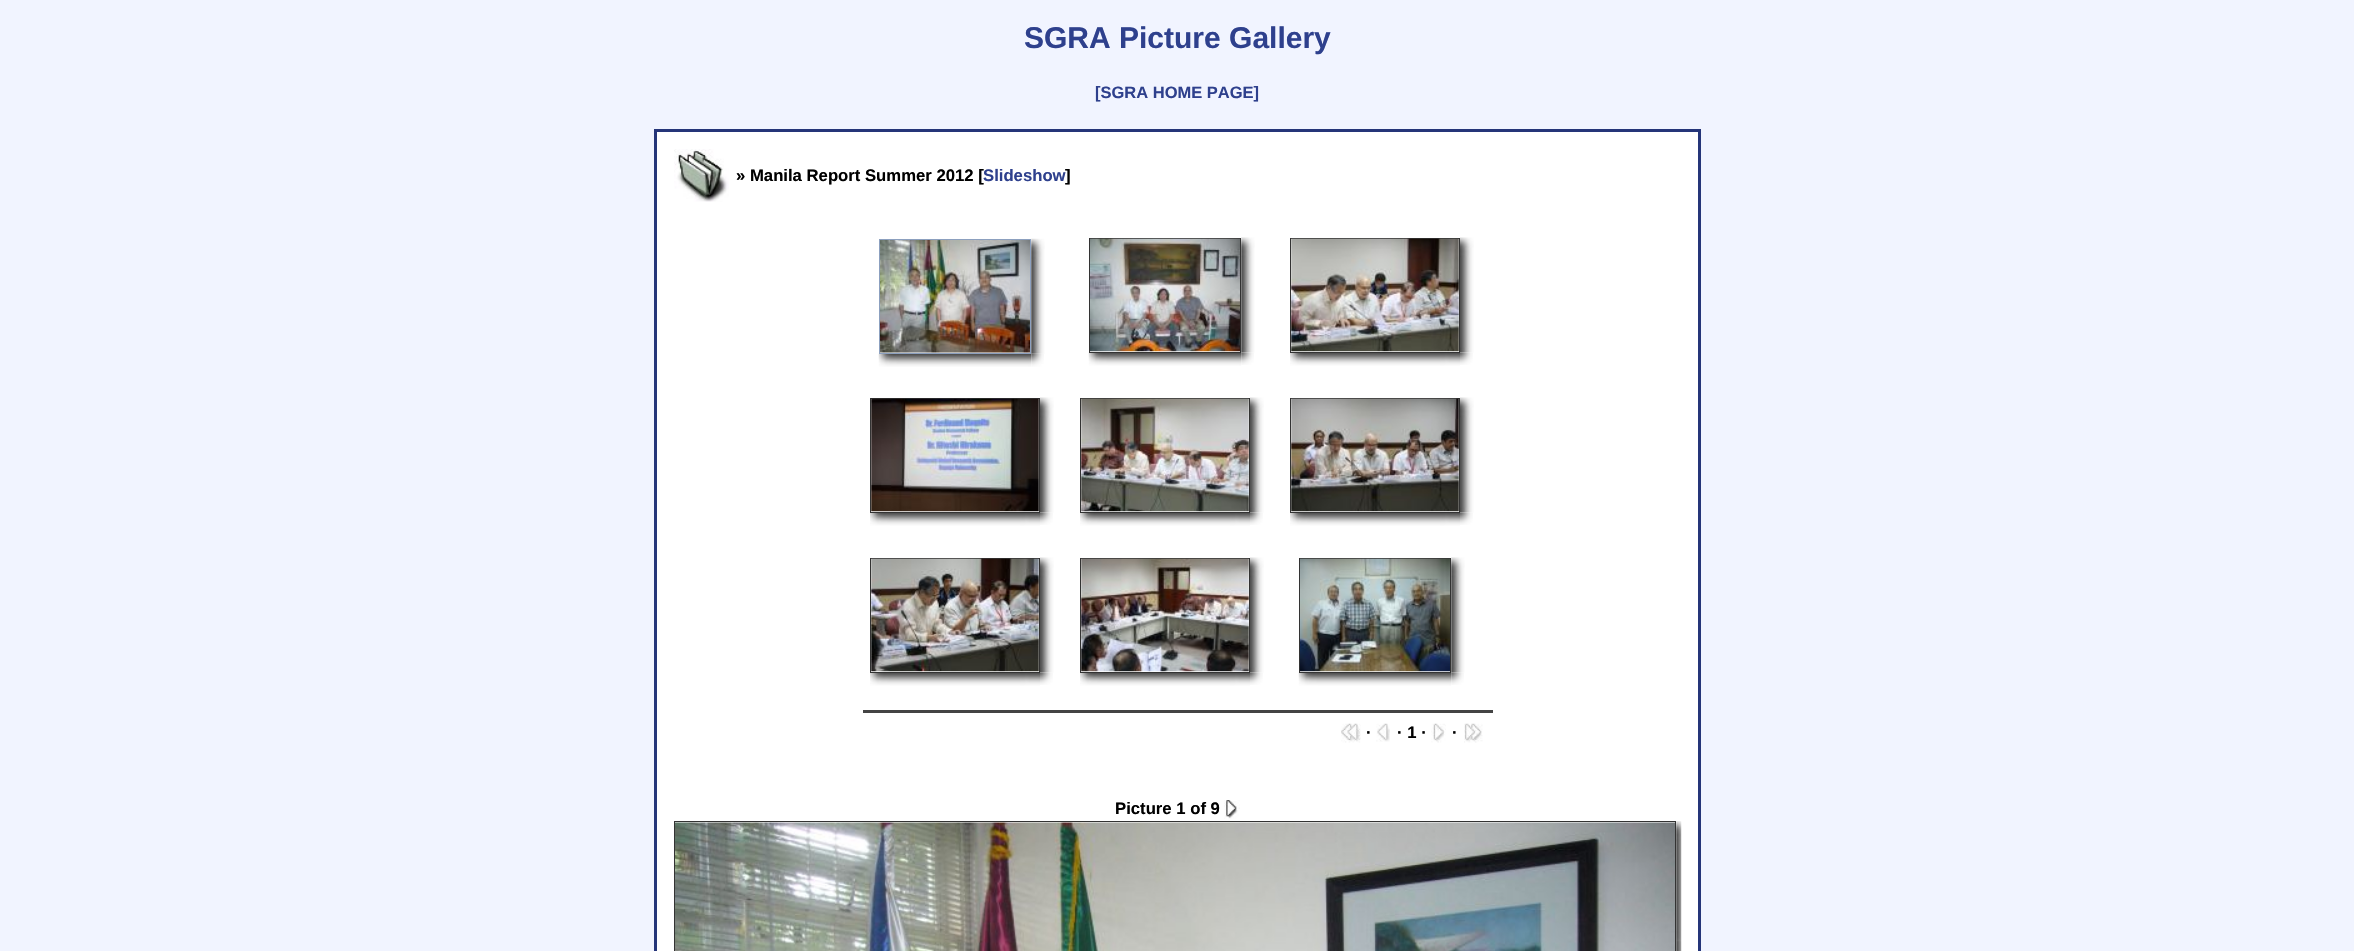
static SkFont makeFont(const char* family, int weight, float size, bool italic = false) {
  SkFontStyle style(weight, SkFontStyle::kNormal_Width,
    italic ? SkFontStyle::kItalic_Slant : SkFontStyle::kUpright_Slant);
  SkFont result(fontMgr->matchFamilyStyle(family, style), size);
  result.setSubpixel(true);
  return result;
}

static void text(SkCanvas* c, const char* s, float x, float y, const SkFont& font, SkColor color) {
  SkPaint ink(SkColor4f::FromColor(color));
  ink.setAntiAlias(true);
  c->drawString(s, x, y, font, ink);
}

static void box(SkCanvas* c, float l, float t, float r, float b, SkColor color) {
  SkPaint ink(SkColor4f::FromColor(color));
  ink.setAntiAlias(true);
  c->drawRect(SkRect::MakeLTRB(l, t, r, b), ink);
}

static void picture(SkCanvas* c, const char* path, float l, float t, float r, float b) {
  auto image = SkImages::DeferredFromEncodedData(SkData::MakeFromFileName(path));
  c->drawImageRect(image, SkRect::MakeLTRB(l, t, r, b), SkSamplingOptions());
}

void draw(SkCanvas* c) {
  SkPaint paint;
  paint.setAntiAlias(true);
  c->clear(0xfff1f4ff);
  SkFont face1 = makeFont("Liberation Sans", 700, 30);
  text(c, "SGRA Picture Gallery", 1024, 48, face1, 0xff2e408d);
  SkFont face2 = makeFont("Liberation Sans", 700, 16.5f);
  text(c, "[SGRA HOME PAGE]", 1095, 98, face2, 0xff2e408d);
  paint.setColor(0xffffffff);
  c->drawRect(SkRect::MakeLTRB(655.5f, 130.5f, 1699.5f, 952.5f), paint);
  paint.setStyle(SkPaint::kStroke_Style);
  paint.setStrokeWidth(3);
  paint.setColor(0xff253579);
  c->drawRect(SkRect::MakeLTRB(655.5f, 130.5f, 1699.5f, 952.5f), paint);
  picture(c, "img_01.png", 674, 149, 729, 202);
  SkFont face3 = makeFont("Liberation Sans", 700, 16.7f);
  text(c, "» Manila Report Summer 2012 [", 736, 181, face3, 0xff000000);
  text(c, "Slideshow", 983, 181, face3, 0xff2e408d);
  text(c, "]", 1065, 181, face3, 0xff000000);
  picture(c, "img_03.png", 1031, 238, 1045, 354);
  picture(c, "img_04.png", 878, 353, 1032, 367);
  paint.setStrokeWidth(1);
  paint.setColor(0xff8ca0bf);
  c->drawRect(SkRect::MakeLTRB(879.5f, 239.5f, 1030.5f, 353.5f), paint);
  picture(c, "img_02.png", 880, 240, 1030, 353);
  picture(c, "img_05.png", 1031, 353, 1044, 367);
  picture(c, "img_07.png", 1241, 237, 1255, 353);
  picture(c, "img_08.png", 1088, 352, 1242, 366);
  paint.setColor(0xff333333);
  c->drawRect(SkRect::MakeLTRB(1089.5f, 238.5f, 1240.5f, 352.5f), paint);
  picture(c, "img_06.png", 1090, 238, 1240, 352);
  picture(c, "img_09.png", 1241, 352, 1254, 365);
  c->drawRect(SkRect::MakeLTRB(1290.5f, 238.5f, 1459.5f, 352.5f), paint);
  picture(c, "img_10.png", 1291, 238, 1459, 352);
  picture(c, "img_11.png", 1460, 237, 1474, 353);
  picture(c, "img_12.png", 1290, 353, 1460, 366);
  picture(c, "img_13.png", 1460, 352, 1473, 365);
  c->drawRect(SkRect::MakeLTRB(870.5f, 398.5f, 1039.5f, 512.5f), paint);
  picture(c, "img_14.png", 871, 398, 1039, 512);
  picture(c, "img_15.png", 1040, 397, 1054, 513);
  picture(c, "img_16.png", 870, 513, 1040, 526);
  picture(c, "img_17.png", 1040, 512, 1053, 525);
  c->drawRect(SkRect::MakeLTRB(1080.5f, 398.5f, 1249.5f, 512.5f), paint);
  picture(c, "img_18.png", 1081, 398, 1249, 512);
  picture(c, "img_11.png", 1250, 397, 1264, 513);
  picture(c, "img_16.png", 1080, 513, 1250, 526);
  picture(c, "img_19.png", 1250, 512, 1263, 525);
  c->drawRect(SkRect::MakeLTRB(1290.5f, 398.5f, 1459.5f, 512.5f), paint);
  picture(c, "img_20.png", 1291, 398, 1459, 512);
  picture(c, "img_11.png", 1460, 397, 1474, 513);
  picture(c, "img_21.png", 1290, 513, 1460, 526);
  picture(c, "img_19.png", 1460, 512, 1473, 525);
  c->drawRect(SkRect::MakeLTRB(870.5f, 558.5f, 1039.5f, 672.5f), paint);
  picture(c, "img_22.png", 871, 558, 1039, 672);
  picture(c, "img_15.png", 1040, 557, 1054, 673);
  picture(c, "img_23.png", 870, 673, 1040, 686);
  picture(c, "img_24.png", 1040, 672, 1053, 685);
  c->drawRect(SkRect::MakeLTRB(1080.5f, 558.5f, 1249.5f, 672.5f), paint);
  picture(c, "img_25.png", 1081, 558, 1249, 672);
  picture(c, "img_11.png", 1250, 557, 1264, 673);
  picture(c, "img_23.png", 1080, 673, 1250, 686);
  picture(c, "img_13.png", 1250, 672, 1263, 685);
  picture(c, "img_07.png", 1451, 557, 1465, 673);
  picture(c, "img_27.png", 1298, 672, 1452, 686);
  c->drawRect(SkRect::MakeLTRB(1299.5f, 558.5f, 1450.5f, 672.5f), paint);
  picture(c, "img_26.png", 1300, 558, 1450, 672);
  picture(c, "img_09.png", 1451, 672, 1464, 685);
  box(c, 863, 710, 1493, 713, 0xff444444);
  picture(c, "img_28.png", 1341, 723, 1361, 743);
  text(c, "·", 1366, 738, face3, 0xff000000);
  picture(c, "img_29.png", 1376, 723, 1390, 742);
  text(c, "· 1 ·", 1397, 738, face3, 0xff000000);
  picture(c, "img_30.png", 1431, 723, 1446, 743);
  text(c, "·", 1452, 738, face3, 0xff000000);
  picture(c, "img_31.png", 1464, 723, 1483, 743);
  text(c, "Picture 1 of 9", 1115, 814, face3, 0xff000000);
  picture(c, "img_32.png", 1224, 800, 1240, 819);
  c->drawRect(SkRect::MakeLTRB(674.5f, 821.5f, 1675.5f, 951.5f), paint);
  picture(c, "img_33.png", 675, 822, 1675, 951);
  picture(c, "img_34.png", 1676, 821, 1682, 951);
}
